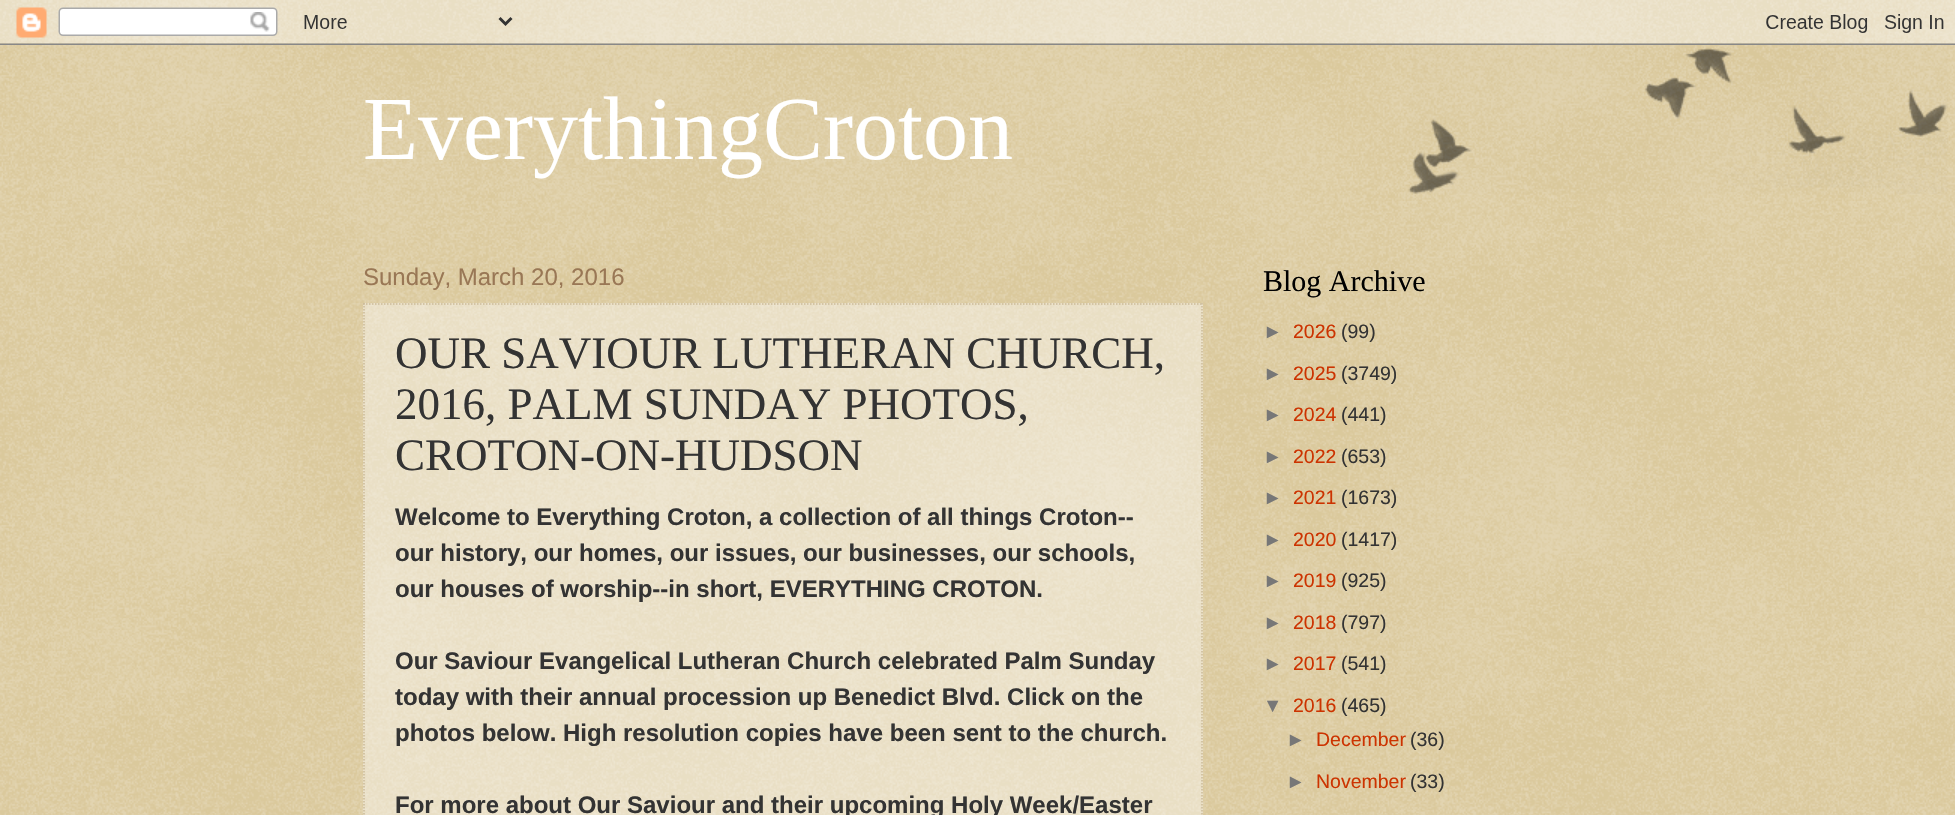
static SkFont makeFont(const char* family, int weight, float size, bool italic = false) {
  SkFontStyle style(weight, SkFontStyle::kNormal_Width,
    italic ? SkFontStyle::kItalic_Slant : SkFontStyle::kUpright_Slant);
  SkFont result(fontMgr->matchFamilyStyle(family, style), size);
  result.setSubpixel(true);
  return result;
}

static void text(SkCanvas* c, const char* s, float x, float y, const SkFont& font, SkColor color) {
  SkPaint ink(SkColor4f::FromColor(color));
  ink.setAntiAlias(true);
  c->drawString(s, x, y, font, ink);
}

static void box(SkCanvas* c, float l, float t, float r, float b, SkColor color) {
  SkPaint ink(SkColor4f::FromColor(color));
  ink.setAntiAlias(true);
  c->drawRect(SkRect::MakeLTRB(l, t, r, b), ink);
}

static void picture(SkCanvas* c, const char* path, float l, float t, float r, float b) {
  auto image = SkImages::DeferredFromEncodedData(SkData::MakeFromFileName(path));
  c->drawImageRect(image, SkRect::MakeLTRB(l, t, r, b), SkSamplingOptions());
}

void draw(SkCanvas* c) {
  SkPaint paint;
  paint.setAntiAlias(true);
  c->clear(0xffc0a154);
  picture(c, "img_01.png", 0, 0, 1955, 815);
  picture(c, "img_02.png", 0, 0, 1955, 45);
  SkFont face1 = makeFont("Liberation Serif", 400, 90);
  text(c, "EverythingCroton", 363, 159, face1, 0xffffffff);
  SkFont face2 = makeFont("Liberation Sans", 400, 24);
  text(c, "Sunday, March 20, 2016", 363, 285, face2, 0xff997755);
  box(c, 363, 303, 1203, 815, 0x66ffffff);
  paint.setStyle(SkPaint::kStroke_Style);
  paint.setStrokeWidth(1.5f);
  paint.setColor(0xffccbb99);
  paint.setPathEffect(SkDashPathEffect::Make({{1.5f, 1.5f}}, 0));
  c->drawPath(SkPathBuilder().moveTo(363, 304).lineTo(1203, 304).detach(), paint);
  paint.setPathEffect(nullptr);
  paint.setPathEffect(SkDashPathEffect::Make({{1.5f, 1.5f}}, 0));
  c->drawPath(SkPathBuilder().moveTo(1202, 303).lineTo(1202, 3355.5f).detach(), paint);
  paint.setPathEffect(nullptr);
  paint.setPathEffect(SkDashPathEffect::Make({{1.5f, 1.5f}}, 0));
  c->drawPath(SkPathBuilder().moveTo(364, 303).lineTo(364, 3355.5f).detach(), paint);
  paint.setPathEffect(nullptr);
  SkFont face3 = makeFont("Liberation Serif", 400, 45);
  text(c, "OUR SAVIOUR LUTHERAN CHURCH,", 395, 368, face3, 0xff333333);
  text(c, "2016, PALM SUNDAY PHOTOS,", 395, 419, face3, 0xff333333);
  text(c, "CROTON-ON-HUDSON", 395, 470, face3, 0xff333333);
  SkFont face4 = makeFont("Liberation Sans", 700, 24);
  text(c, "Welcome to Everything Croton, a collection of all things Croton--", 395, 525, face4, 0xff333333);
  text(c, "our history, our homes, our issues, our businesses, our schools,", 395, 561, face4, 0xff333333);
  text(c, "our houses of worship--in short, EVERYTHING CROTON.", 395, 597, face4, 0xff333333);
  text(c, "Our Saviour Evangelical Lutheran Church celebrated Palm Sunday", 395, 669, face4, 0xff333333);
  text(c, "today with their annual procession up Benedict Blvd. Click on the", 395, 705, face4, 0xff333333);
  text(c, "photos below. High resolution copies have been sent to the church.", 395, 741, face4, 0xff333333);
  text(c, "For more about Our Saviour and their upcoming Holy Week/Easter", 395, 813, face4, 0xff333333);
  SkFont face5 = makeFont("Liberation Serif", 400, 30);
  text(c, "Blog Archive", 1263, 291, face5, 0xff000000);
  SkFont face6 = makeFont("Liberation Sans", 400, 19.5f);
  text(c, "►", 1263, 338, face6, 0xff777777);
  text(c, "2026", 1293, 338, face6, 0xffcc3300);
  text(c, "(99)", 1341, 338, face6, 0xff333333);
  text(c, "►", 1263, 380, face6, 0xff777777);
  text(c, "2025", 1293, 380, face6, 0xffcc3300);
  text(c, "(3749)", 1341, 380, face6, 0xff333333);
  text(c, "►", 1263, 421, face6, 0xff777777);
  text(c, "2024", 1293, 421, face6, 0xffcc3300);
  text(c, "(441)", 1341, 421, face6, 0xff333333);
  text(c, "►", 1263, 463, face6, 0xff777777);
  text(c, "2022", 1293, 463, face6, 0xffcc3300);
  text(c, "(653)", 1341, 463, face6, 0xff333333);
  text(c, "►", 1263, 504, face6, 0xff777777);
  text(c, "2021", 1293, 504, face6, 0xffcc3300);
  text(c, "(1673)", 1341, 504, face6, 0xff333333);
  text(c, "►", 1263, 546, face6, 0xff777777);
  text(c, "2020", 1293, 546, face6, 0xffcc3300);
  text(c, "(1417)", 1341, 546, face6, 0xff333333);
  text(c, "►", 1263, 587, face6, 0xff777777);
  text(c, "2019", 1293, 587, face6, 0xffcc3300);
  text(c, "(925)", 1341, 587, face6, 0xff333333);
  text(c, "►", 1263, 629, face6, 0xff777777);
  text(c, "2018", 1293, 629, face6, 0xffcc3300);
  text(c, "(797)", 1341, 629, face6, 0xff333333);
  text(c, "►", 1263, 670, face6, 0xff777777);
  text(c, "2017", 1293, 670, face6, 0xffcc3300);
  text(c, "(541)", 1341, 670, face6, 0xff333333);
  text(c, "▼", 1263, 712, face6, 0xff777777);
  text(c, "2016", 1293, 712, face6, 0xffcc3300);
  text(c, "(465)", 1341, 712, face6, 0xff333333);
  text(c, "►", 1286, 746, face6, 0xff777777);
  text(c, "December", 1316, 746, face6, 0xffcc3300);
  text(c, "(36)", 1410, 746, face6, 0xff333333);
  text(c, "►", 1286, 788, face6, 0xff777777);
  text(c, "November", 1316, 788, face6, 0xffcc3300);
  text(c, "(33)", 1410, 788, face6, 0xff333333);
  picture(c, "img_03.png", 1408, 48, 1948, 194);
}
